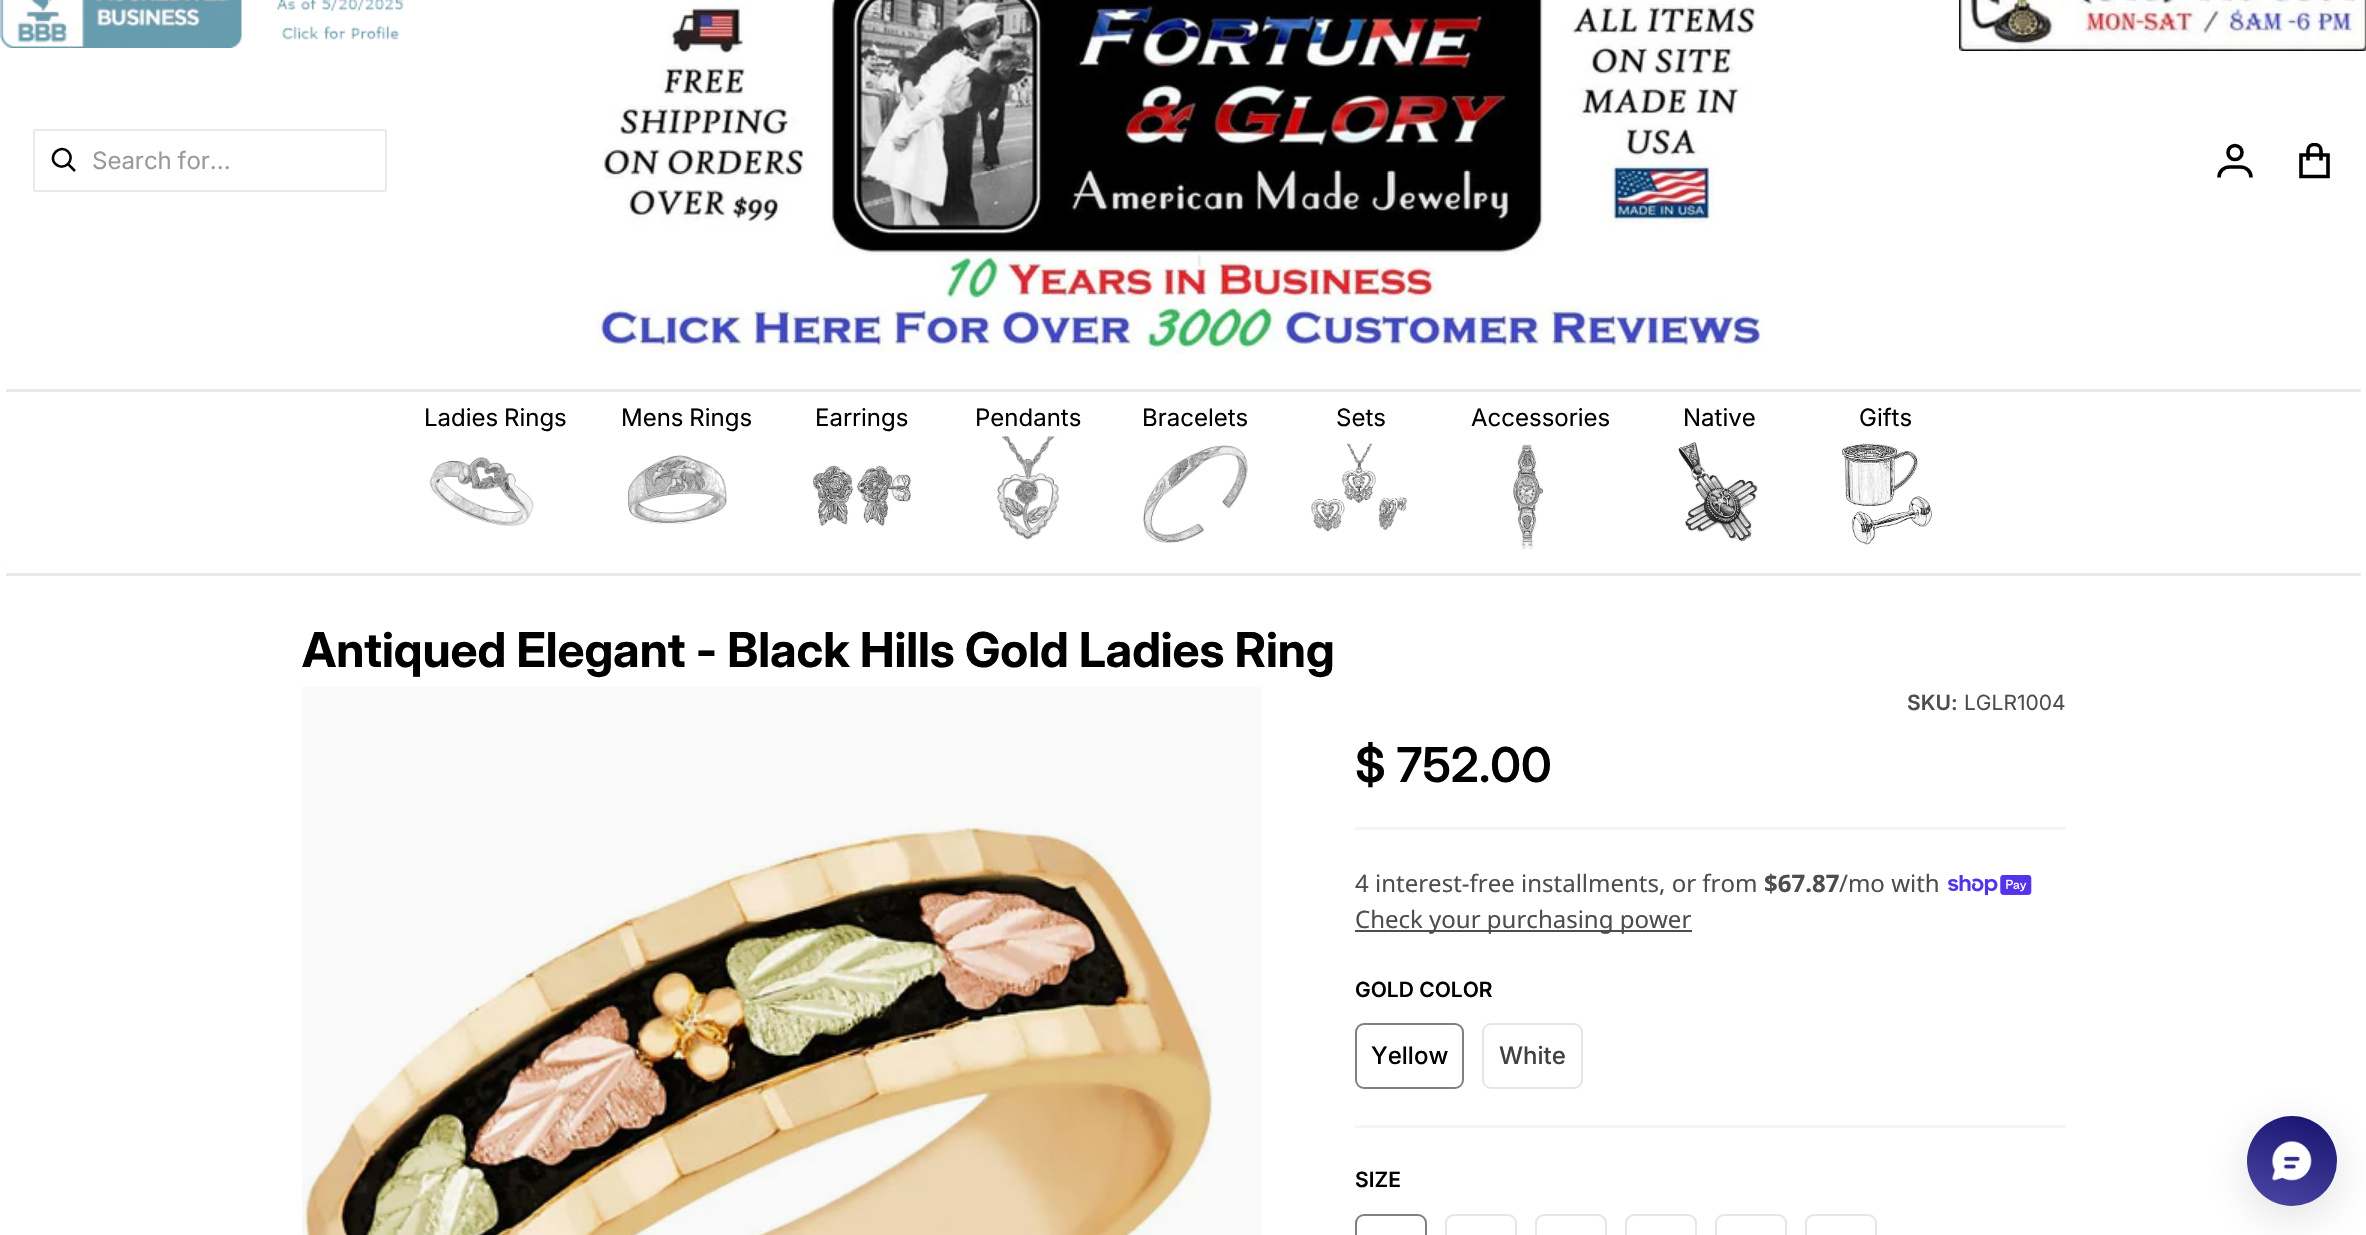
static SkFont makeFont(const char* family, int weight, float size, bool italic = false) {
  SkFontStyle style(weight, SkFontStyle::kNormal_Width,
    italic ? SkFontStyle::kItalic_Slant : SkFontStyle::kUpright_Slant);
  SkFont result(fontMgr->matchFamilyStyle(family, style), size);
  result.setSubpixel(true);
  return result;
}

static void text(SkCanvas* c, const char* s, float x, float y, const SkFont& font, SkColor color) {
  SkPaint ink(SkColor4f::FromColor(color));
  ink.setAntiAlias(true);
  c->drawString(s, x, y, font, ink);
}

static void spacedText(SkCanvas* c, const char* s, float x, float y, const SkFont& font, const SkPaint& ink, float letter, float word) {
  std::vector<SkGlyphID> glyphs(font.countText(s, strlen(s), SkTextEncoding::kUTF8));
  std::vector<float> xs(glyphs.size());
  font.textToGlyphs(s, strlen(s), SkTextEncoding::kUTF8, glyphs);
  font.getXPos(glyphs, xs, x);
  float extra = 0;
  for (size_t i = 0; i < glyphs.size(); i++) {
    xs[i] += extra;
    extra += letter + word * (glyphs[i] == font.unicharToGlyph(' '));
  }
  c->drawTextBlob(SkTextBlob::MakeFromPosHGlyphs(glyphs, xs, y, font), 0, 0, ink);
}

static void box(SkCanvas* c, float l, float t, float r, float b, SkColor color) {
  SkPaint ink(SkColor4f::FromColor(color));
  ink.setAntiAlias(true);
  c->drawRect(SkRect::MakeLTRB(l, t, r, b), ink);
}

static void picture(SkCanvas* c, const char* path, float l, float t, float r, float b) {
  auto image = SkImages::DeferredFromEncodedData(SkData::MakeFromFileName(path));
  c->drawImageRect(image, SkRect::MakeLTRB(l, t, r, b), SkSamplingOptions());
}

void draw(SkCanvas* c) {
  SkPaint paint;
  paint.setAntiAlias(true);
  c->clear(0xffffffff);
  box(c, 302, 687, 1262, 1235, 0xfffafafa);
  picture(c, "img_01.png", 0, 0, 404, 48);
  picture(c, "img_02.png", 1959, 0, 2366, 51);
  paint.setStyle(SkPaint::kStroke_Style);
  paint.setStrokeWidth(2);
  paint.setColor(0xffe8e9eb);
  c->drawRoundRect(SkRect::MakeLTRB(34, 130, 386, 191), 2, 2, paint);
  paint.setStrokeWidth(2.5f);
  paint.setColor(0xff000000);
  c->drawPath(SkPathBuilder().moveTo(68, 151.5f).cubicTo(76, 160, 64, 172, 55.5f, 164).cubicTo(47.5f, 156, 60, 143.5f, 68, 151.5f).close().moveTo(67.5f, 163.5f).lineTo(75, 171).detach(), paint);
  SkFont face1 = makeFont("Inter", 400, 24);
  paint.setStyle(SkPaint::kFill_Style);
  paint.setColor(0xff999999);
  spacedText(c, "Search for...", 92, 169, face1, paint, 0, -1);
  picture(c, "img_03.png", 592, 0, 1766, 354);
  paint.setStyle(SkPaint::kStroke_Style);
  paint.setStrokeWidth(3.6f);
  paint.setColor(0xff000000);
  c->drawCircle(2235, 152.5f, 7, paint);
  c->drawPath(SkPathBuilder().moveTo(2219, 177.5f).cubicTo(2219, 171.5f, 2223.5f, 167, 2229.5f, 167).lineTo(2240.5f, 167).cubicTo(2246.5f, 167, 2251, 171.5f, 2251, 177.5f).detach(), paint);
  c->drawPath(SkPathBuilder().moveTo(2301, 155).lineTo(2328, 155).lineTo(2328, 176.5f).lineTo(2301, 176.5f).close().detach(), paint);
  c->save();
  c->clipRect(SkRect::MakeLTRB(2297, 143, 2333, 179));
  c->drawPath(SkPathBuilder().moveTo(2321, 160.5f).lineTo(2321, 150.5f).cubicTo(2321, 147, 2318, 144.5f, 2314.5f, 144.5f).cubicTo(2311, 144.5f, 2308, 147, 2308, 150.5f).lineTo(2308, 160.5f).detach(), paint);
  c->restore();
  paint.setStyle(SkPaint::kFill_Style);
  {
    const SkColor colors[] = {0xfff6f5f4, 0xfff57454};
    const float stops[] = {0.33f, 1};
    const SkPoint ends[] = {{0, 533}, {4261, 533}};
    paint.setShader(SkGradientShader::MakeLinear(ends, colors, stops, 2, SkTileMode::kClamp));
    paint.setAlpha(255);
  }
  c->drawRect(SkRect::MakeLTRB(0, 564, 1, 567), paint);
  paint.setShader(nullptr);
  paint.setColor(0xffffffff);
  c->drawPath(SkPathBuilder().moveTo(12, 392).lineTo(2355, 392).cubicTo(2362, 392, 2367, 396, 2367, 400).lineTo(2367, 564).cubicTo(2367, 569, 2362, 573, 2355, 573).lineTo(12, 573).cubicTo(5, 573, 0, 569, 0, 564).lineTo(0, 400).cubicTo(0, 396, 5, 392, 12, 392).close().detach(), paint);
  box(c, 6, 389, 2361, 392, 0xffe8e9eb);
  box(c, 6, 573, 2361, 576, 0xffe8e9eb);
  paint.setColor(0xff000000);
  spacedText(c, "Ladies Rings", 424, 426, face1, paint, 0, -1);
  picture(c, "img_04.png", 429, 457, 534, 527);
  spacedText(c, "Mens Rings", 621, 426, face1, paint, 0, -1);
  picture(c, "img_05.png", 627, 455, 727, 524);
  text(c, "Earrings", 815, 426, face1, 0xff000000);
  picture(c, "img_06.png", 812, 465, 911, 527);
  text(c, "Pendants", 975, 426, face1, 0xff000000);
  picture(c, "img_07.png", 997, 436, 1060, 540);
  text(c, "Bracelets", 1142, 426, face1, 0xff000000);
  picture(c, "img_08.png", 1143, 445, 1248, 543);
  text(c, "Sets", 1336, 426, face1, 0xff000000);
  picture(c, "img_09.png", 1311, 443, 1408, 532);
  text(c, "Accessories", 1471, 426, face1, 0xff000000);
  picture(c, "img_10.png", 1513, 444, 1544, 549);
  text(c, "Native", 1683, 426, face1, 0xff000000);
  picture(c, "img_11.png", 1678, 441, 1758, 542);
  text(c, "Gifts", 1859, 426, face1, 0xff000000);
  picture(c, "img_12.png", 1841, 443, 1932, 545);
  SkFont face2 = makeFont("Inter", 700, 48);
  text(c, "Antiqued Elegant - Black Hills Gold Ladies Ring", 302, 667, face2, 0xff000000);
  picture(c, "img_13.png", 302, 822, 1214, 1235);
  box(c, 1355, 827, 2066, 830, 0xfff5f5f5);
  SkFont face3 = makeFont("Inter", 600, 21);
  text(c, "SKU:", 1907, 710, face3, 0xff4d4d4d);
  SkFont face4 = makeFont("Inter", 400, 21);
  text(c, "LGLR1004", 1964, 710, face4, 0xff4d4d4d);
  SkFont face5 = makeFont("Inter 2", 600, 48);
  text(c, "$ 752.00", 1355, 782, face5, 0xff000000);
  SkFont face6 = makeFont("Noto Sans", 400, 24);
  text(c, "4 interest-free installments, or from", 1355, 892, face6, 0xff4d4d4d);
  SkFont face7 = makeFont("Noto Sans", 700, 24);
  text(c, "$67.87", 1764, 892, face7, 0xff4d4d4d);
  text(c, "/mo with", 1839, 892, face6, 0xff4d4d4d);
  picture(c, "img_14.png", 1948, 875, 2032, 896);
  box(c, 1355, 930, 1692, 932, 0xff4d4d4d);
  text(c, "Check your purchasing power", 1355, 928, face6, 0xff4d4d4d);
  text(c, "GOLD COLOR", 1355, 997, face3, 0xff000000);
  paint.setStyle(SkPaint::kStroke_Style);
  paint.setStrokeWidth(2);
  paint.setColor(0xff808080);
  c->drawRoundRect(SkRect::MakeLTRB(1356, 1024, 1463, 1088), 8, 8, paint);
  SkFont face8 = makeFont("Inter", 500, 24);
  text(c, "Yellow", 1371, 1064, face8, 0xff000000);
  paint.setColor(0xffe6e6e6);
  c->drawRoundRect(SkRect::MakeLTRB(1483, 1024, 1582, 1088), 8, 8, paint);
  text(c, "White", 1499, 1064, face8, 0xff404040);
  box(c, 1355, 1125, 2066, 1128, 0xfff5f5f5);
  text(c, "SIZE", 1355, 1187, face3, 0xff000000);
  paint.setColor(0xff808080);
  c->drawRoundRect(SkRect::MakeLTRB(1356, 1215, 1426, 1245), 8, 8, paint);
  paint.setColor(0xffe6e6e6);
  c->drawRoundRect(SkRect::MakeLTRB(1446, 1215, 1516, 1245), 8, 8, paint);
  c->drawRoundRect(SkRect::MakeLTRB(1536, 1215, 1606, 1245), 8, 8, paint);
  c->drawRoundRect(SkRect::MakeLTRB(1626, 1215, 1696, 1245), 8, 8, paint);
  c->drawRoundRect(SkRect::MakeLTRB(1716, 1215, 1786, 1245), 8, 8, paint);
  c->drawRoundRect(SkRect::MakeLTRB(1806, 1215, 1876, 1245), 8, 8, paint);
  paint.setStyle(SkPaint::kFill_Style);
  paint.setColor(0x3364646f);
  paint.setMaskFilter(SkMaskFilter::MakeBlur(kNormal_SkBlurStyle, 22));
  c->drawRoundRect(SkRect::MakeLTRB(2247, 1127, 2337, 1217), 45, 45, paint);
  paint.setMaskFilter(nullptr);
  {
    const SkColor colors[] = {0xff15116d, 0xff4c48a4};
    const float stops[] = {0, 1};
    const SkPoint ends[] = {{2311, 1107}, {2273, 1215}};
    paint.setShader(SkGradientShader::MakeLinear(ends, colors, stops, 2, SkTileMode::kClamp));
    paint.setAlpha(255);
  }
  c->drawCircle(2292, 1161, 45, paint);
  picture(c, "img_15.png", 2272, 1141, 2312, 1181);
}
